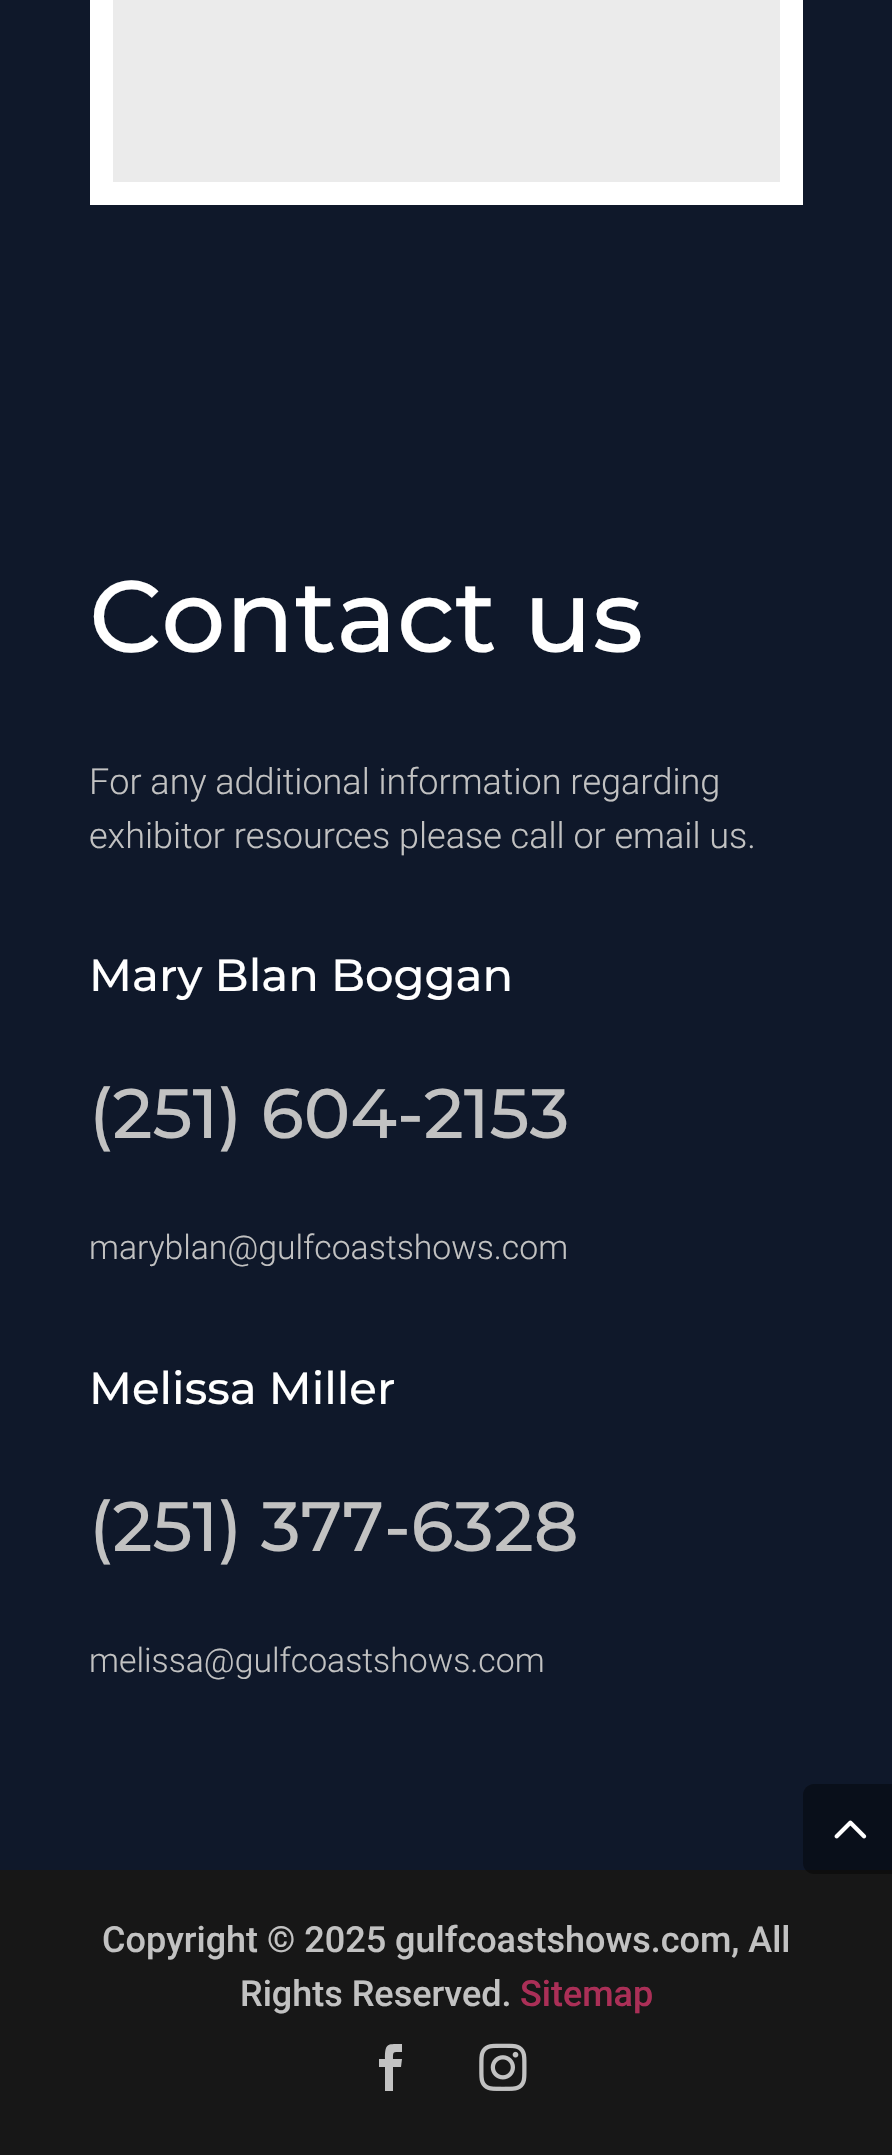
static SkFont makeFont(const char* family, int weight, float size, bool italic = false) {
  SkFontStyle style(weight, SkFontStyle::kNormal_Width,
    italic ? SkFontStyle::kItalic_Slant : SkFontStyle::kUpright_Slant);
  SkFont result(fontMgr->matchFamilyStyle(family, style), size);
  result.setSubpixel(true);
  return result;
}

static void text(SkCanvas* c, const char* s, float x, float y, const SkFont& font, SkColor color) {
  SkPaint ink(SkColor4f::FromColor(color));
  ink.setAntiAlias(true);
  c->drawString(s, x, y, font, ink);
}

static void box(SkCanvas* c, float l, float t, float r, float b, SkColor color) {
  SkPaint ink(SkColor4f::FromColor(color));
  ink.setAntiAlias(true);
  c->drawRect(SkRect::MakeLTRB(l, t, r, b), ink);
}

static void picture(SkCanvas* c, const char* path, float l, float t, float r, float b) {
  auto image = SkImages::DeferredFromEncodedData(SkData::MakeFromFileName(path));
  c->drawImageRect(image, SkRect::MakeLTRB(l, t, r, b), SkSamplingOptions());
}

void draw(SkCanvas* c) {
  SkPaint paint;
  paint.setAntiAlias(true);
  c->clear(0xff0f182a);
  paint.setColor(0xffebebeb);
  c->drawRect(SkRect::MakeLTRB(101.5f, -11.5f, 791.5f, 193.5f), paint);
  paint.setStyle(SkPaint::kStroke_Style);
  paint.setStrokeWidth(23);
  paint.setColor(0xffffffff);
  c->drawRect(SkRect::MakeLTRB(101.5f, -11.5f, 791.5f, 193.5f), paint);
  SkFont face1 = makeFont("Montserrat", 500, 101.25f);
  text(c, "Contact us", 89, 652, face1, 0xffffffff);
  SkFont face2 = makeFont("Roboto", 300, 36);
  text(c, "For any additional information regarding", 89, 794, face2, 0xffc2c2c2);
  text(c, "exhibitor resources please call or email us.", 89, 848, face2, 0xffc2c2c2);
  SkFont face3 = makeFont("Montserrat", 500, 45);
  text(c, "Mary Blan Boggan", 89, 991, face3, 0xffffffff);
  SkFont face4 = makeFont("Montserrat", 500, 69.75f);
  text(c, "(251) 604-2153", 89, 1138, face4, 0xffc2c2c2);
  SkFont face5 = makeFont("Roboto", 300, 33.75f);
  text(c, "maryblan@gulfcoastshows.com", 89, 1259, face5, 0xffc2c2c2);
  text(c, "Melissa Miller", 89, 1404, face3, 0xffffffff);
  text(c, "(251) 377-6328", 89, 1551, face4, 0xffc2c2c2);
  text(c, "melissa@gulfcoastshows.com", 89, 1672, face5, 0xffc2c2c2);
  box(c, 0, 1870, 892, 2155, 0xff171717);
  SkFont face6 = makeFont("Roboto", 500, 36);
  text(c, "Copyright © 2025 gulfcoastshows.com, All", 102, 1952, face6, 0xffc2c2c2);
  text(c, "Rights Reserved.", 240, 2006, face6, 0xffc2c2c2);
  text(c, "Sitemap", 520, 2006, face6, 0xffab2f57);
  paint.setStyle(SkPaint::kFill_Style);
  paint.setColor(0xffc2c2c2);
  c->drawPath(SkPathBuilder().moveTo(385, 2091).lineTo(393, 2091).lineTo(393, 2067).lineTo(401, 2067).lineTo(402, 2059).lineTo(393, 2059).cubicTo(393, 2051, 393, 2052, 402, 2052).lineTo(402, 2044).cubicTo(387, 2044, 385, 2043, 385, 2059).lineTo(379, 2059).lineTo(379, 2067).lineTo(385, 2067).close().detach(), paint);
  picture(c, "img_01.png", 479, 2043, 527, 2091);
  paint.setColor(0x66000000);
  c->drawPath(SkPathBuilder().moveTo(814, 1784).lineTo(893, 1784).lineTo(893, 1874).lineTo(814, 1874).cubicTo(808, 1874, 803, 1869, 803, 1863).lineTo(803, 1795).cubicTo(803, 1789, 808, 1784, 814, 1784).close().detach(), paint);
  picture(c, "img_02.png", 834, 1820, 867, 1839);
}
